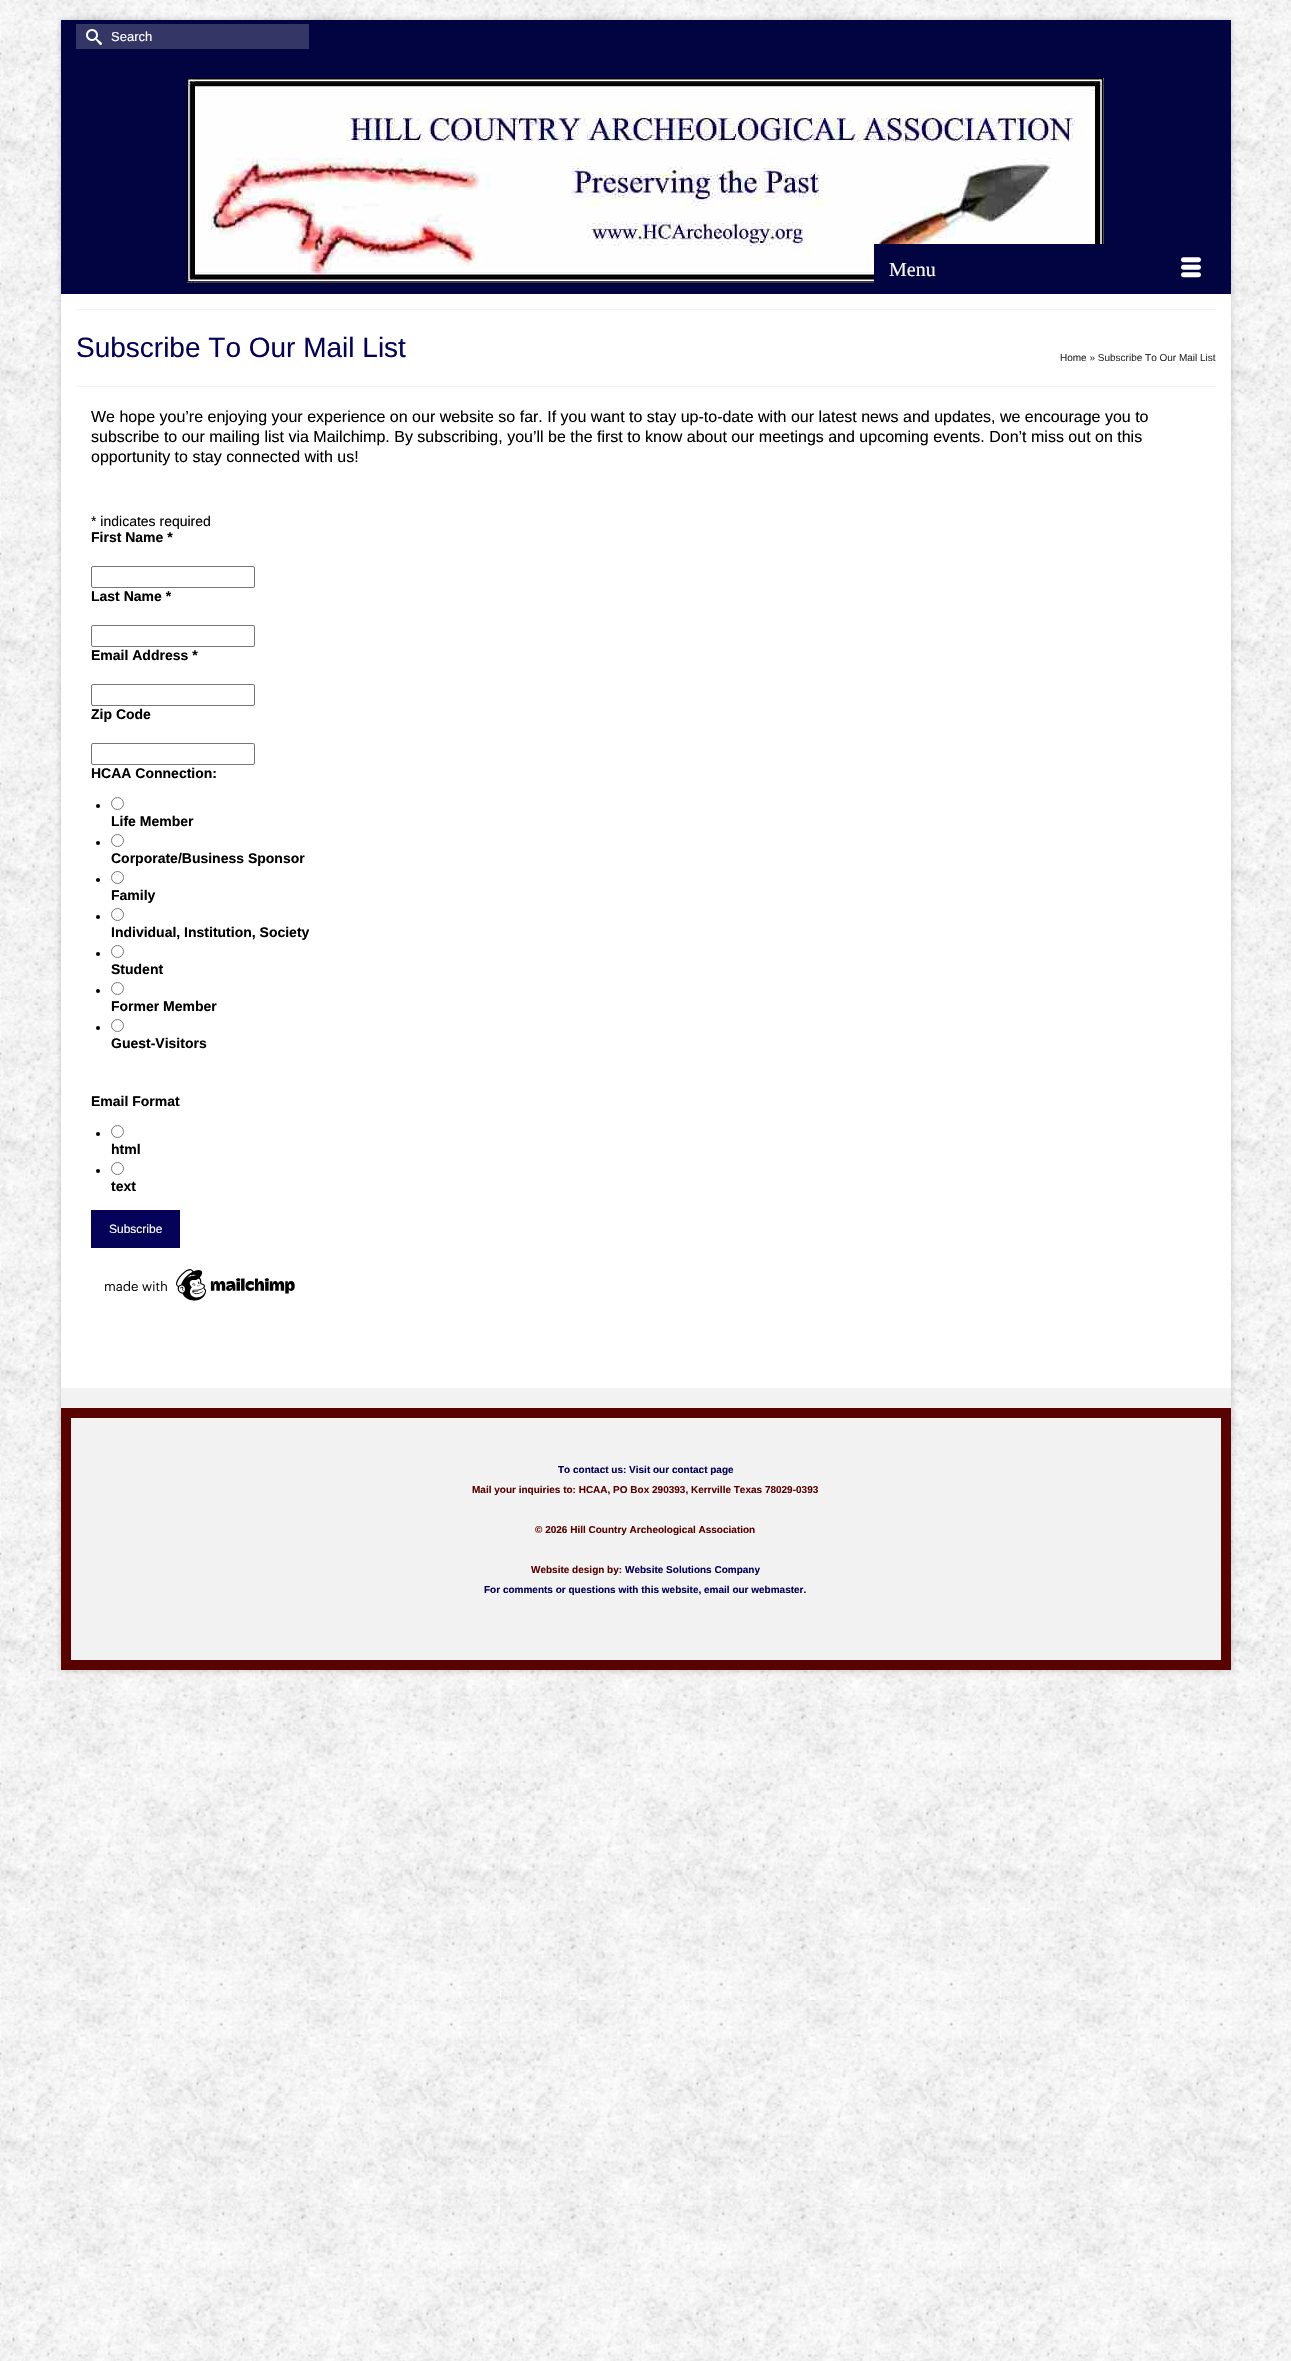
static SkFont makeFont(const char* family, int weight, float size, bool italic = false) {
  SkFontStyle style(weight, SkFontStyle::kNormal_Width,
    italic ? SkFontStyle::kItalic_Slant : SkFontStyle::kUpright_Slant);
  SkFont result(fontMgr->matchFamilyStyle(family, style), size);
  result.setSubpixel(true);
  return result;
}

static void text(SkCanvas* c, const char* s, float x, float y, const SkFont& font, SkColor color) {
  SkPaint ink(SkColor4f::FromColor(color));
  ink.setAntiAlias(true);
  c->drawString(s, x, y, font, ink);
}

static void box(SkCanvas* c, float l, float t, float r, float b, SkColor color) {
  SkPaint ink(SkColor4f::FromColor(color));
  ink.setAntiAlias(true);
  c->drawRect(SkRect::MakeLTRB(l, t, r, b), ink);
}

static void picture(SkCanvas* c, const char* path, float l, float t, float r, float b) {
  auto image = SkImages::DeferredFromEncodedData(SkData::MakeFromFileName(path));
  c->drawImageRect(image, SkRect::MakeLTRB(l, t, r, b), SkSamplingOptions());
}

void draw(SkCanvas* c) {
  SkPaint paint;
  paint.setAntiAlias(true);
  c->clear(0xffffffff);
  picture(c, "img_01.png", 0, 0, 1291, 2361);
  paint.setColor(0x29000000);
  paint.setMaskFilter(SkMaskFilter::MakeBlur(kNormal_SkBlurStyle, 2.5f));
  c->drawRect(SkRect::MakeLTRB(60, 19, 1232, 1671), paint);
  paint.setMaskFilter(nullptr);
  box(c, 61, 20, 1231, 294, 0xff010440);
  box(c, 76, 24, 309, 49, 0xff343666);
  picture(c, "img_02.png", 86, 29, 102, 45);
  SkFont face1 = makeFont("Liberation Sans", 400, 13);
  text(c, "Search", 111, 41, face1, 0xffffffff);
  picture(c, "img_03.png", 187, 78, 1104, 283);
  box(c, 874, 244, 1104, 283, 0xff010440);
  SkFont face2 = makeFont("Liberation Serif", 400, 20);
  text(c, "Menu", 889, 276, face2, 0xffffffff);
  picture(c, "img_04.png", 1181, 257, 1201, 278);
  box(c, 61, 294, 1231, 1388, 0xffffffff);
  box(c, 76, 309, 1216, 310, 0xfff2f2f2);
  box(c, 76, 386, 1216, 387, 0xfff2f2f2);
  SkFont face3 = makeFont("Liberation Sans", 400, 28);
  text(c, "Subscribe To Our Mail List", 76, 357, face3, 0xff050259);
  SkFont face4 = makeFont("Liberation Sans", 400, 10);
  text(c, "Home » Subscribe To Our Mail List", 1060, 361, face4, 0xff33302e);
  SkFont face5 = makeFont("Liberation Sans", 400, 16);
  text(c, "We hope you’re enjoying your experience on our website so far. If you want to stay up-to-date with our latest news and updates, we encourage you to", 91, 422, face5, 0xff000000);
  text(c, "subscribe to our mailing list via Mailchimp. By subscribing, you’ll be the first to know about our meetings and upcoming events. Don’t miss out on this", 91, 442, face5, 0xff000000);
  text(c, "opportunity to stay connected with us!", 91, 462, face5, 0xff000000);
  SkFont face6 = makeFont("Liberation Sans", 400, 14);
  text(c, "* indicates required", 91, 526, face6, 0xff000000);
  SkFont face7 = makeFont("Liberation Sans", 700, 14);
  text(c, "First Name *", 91, 542, face7, 0xff000000);
  paint.setStyle(SkPaint::kStroke_Style);
  paint.setStrokeWidth(1);
  paint.setColor(0xff767676);
  c->drawRoundRect(SkRect::MakeLTRB(91.5f, 566.5f, 254.5f, 587.5f), 1.5f, 1.5f, paint);
  text(c, "Last Name *", 91, 601, face7, 0xff000000);
  c->drawRoundRect(SkRect::MakeLTRB(91.5f, 625.5f, 254.5f, 646.5f), 1.5f, 1.5f, paint);
  text(c, "Email Address *", 91, 660, face7, 0xff000000);
  c->drawRoundRect(SkRect::MakeLTRB(91.5f, 684.5f, 254.5f, 705.5f), 1.5f, 1.5f, paint);
  text(c, "Zip Code", 91, 719, face7, 0xff000000);
  c->drawRoundRect(SkRect::MakeLTRB(91.5f, 743.5f, 254.5f, 764.5f), 1.5f, 1.5f, paint);
  text(c, "HCAA Connection:", 91, 778, face7, 0xff000000);
  paint.setStyle(SkPaint::kFill_Style);
  paint.setColor(0xff000000);
  c->drawCircle(98, 806, 2, paint);
  paint.setStyle(SkPaint::kStroke_Style);
  paint.setColor(0xff767676);
  c->drawCircle(117.5f, 803.5f, 6, paint);
  text(c, "Life Member", 111, 826, face7, 0xff000000);
  paint.setStyle(SkPaint::kFill_Style);
  paint.setColor(0xff000000);
  c->drawCircle(98, 843, 2, paint);
  paint.setStyle(SkPaint::kStroke_Style);
  paint.setColor(0xff767676);
  c->drawCircle(117.5f, 840.5f, 6, paint);
  text(c, "Corporate/Business Sponsor", 111, 863, face7, 0xff000000);
  paint.setStyle(SkPaint::kFill_Style);
  paint.setColor(0xff000000);
  c->drawCircle(98, 880, 2, paint);
  paint.setStyle(SkPaint::kStroke_Style);
  paint.setColor(0xff767676);
  c->drawCircle(117.5f, 877.5f, 6, paint);
  text(c, "Family", 111, 900, face7, 0xff000000);
  paint.setStyle(SkPaint::kFill_Style);
  paint.setColor(0xff000000);
  c->drawCircle(98, 917, 2, paint);
  paint.setStyle(SkPaint::kStroke_Style);
  paint.setColor(0xff767676);
  c->drawCircle(117.5f, 914.5f, 6, paint);
  text(c, "Individual, Institution, Society", 111, 937, face7, 0xff000000);
  paint.setStyle(SkPaint::kFill_Style);
  paint.setColor(0xff000000);
  c->drawCircle(98, 954, 2, paint);
  paint.setStyle(SkPaint::kStroke_Style);
  paint.setColor(0xff767676);
  c->drawCircle(117.5f, 951.5f, 6, paint);
  text(c, "Student", 111, 974, face7, 0xff000000);
  paint.setStyle(SkPaint::kFill_Style);
  paint.setColor(0xff000000);
  c->drawCircle(98, 991, 2, paint);
  paint.setStyle(SkPaint::kStroke_Style);
  paint.setColor(0xff767676);
  c->drawCircle(117.5f, 988.5f, 6, paint);
  text(c, "Former Member", 111, 1011, face7, 0xff000000);
  paint.setStyle(SkPaint::kFill_Style);
  paint.setColor(0xff000000);
  c->drawCircle(98, 1028, 2, paint);
  paint.setStyle(SkPaint::kStroke_Style);
  paint.setColor(0xff767676);
  c->drawCircle(117.5f, 1025.5f, 6, paint);
  text(c, "Guest-Visitors", 111, 1048, face7, 0xff000000);
  text(c, "Email Format", 91, 1106, face7, 0xff000000);
  paint.setStyle(SkPaint::kFill_Style);
  paint.setColor(0xff000000);
  c->drawCircle(98, 1134, 2, paint);
  paint.setStyle(SkPaint::kStroke_Style);
  paint.setColor(0xff767676);
  c->drawCircle(117.5f, 1131.5f, 6, paint);
  text(c, "html", 111, 1154, face7, 0xff000000);
  paint.setStyle(SkPaint::kFill_Style);
  paint.setColor(0xff000000);
  c->drawCircle(98, 1171, 2, paint);
  paint.setStyle(SkPaint::kStroke_Style);
  paint.setColor(0xff767676);
  c->drawCircle(117.5f, 1168.5f, 6, paint);
  text(c, "text", 111, 1191, face7, 0xff000000);
  box(c, 91, 1210, 180, 1248, 0xff050259);
  SkFont face8 = makeFont("Liberation Sans", 400, 12);
  text(c, "Subscribe", 109, 1233, face8, 0xffffffff);
  picture(c, "img_05.png", 105, 1269, 295, 1301);
  box(c, 61, 1388, 1231, 1660, 0xfff2f2f2);
  paint.setStrokeWidth(10);
  paint.setColor(0xff590202);
  c->drawRect(SkRect::MakeLTRB(66, 1413, 1226, 1665), paint);
  SkFont face9 = makeFont("Liberation Sans", 700, 10);
  text(c, "To contact us: Visit our contact page", 558, 1473, face9, 0xff050259);
  text(c, "Mail your inquiries to: HCAA, PO Box 290393, Kerrville Texas 78029-0393", 472, 1493, face9, 0xff590202);
  text(c, "© 2026 Hill Country Archeological Association", 535, 1533, face9, 0xff590202);
  text(c, "Website design by:", 531, 1573, face9, 0xff590202);
  text(c, "Website Solutions Company", 625, 1573, face9, 0xff050259);
  text(c, "For comments or questions with this website, email our webmaster.", 484, 1593, face9, 0xff050259);
}
